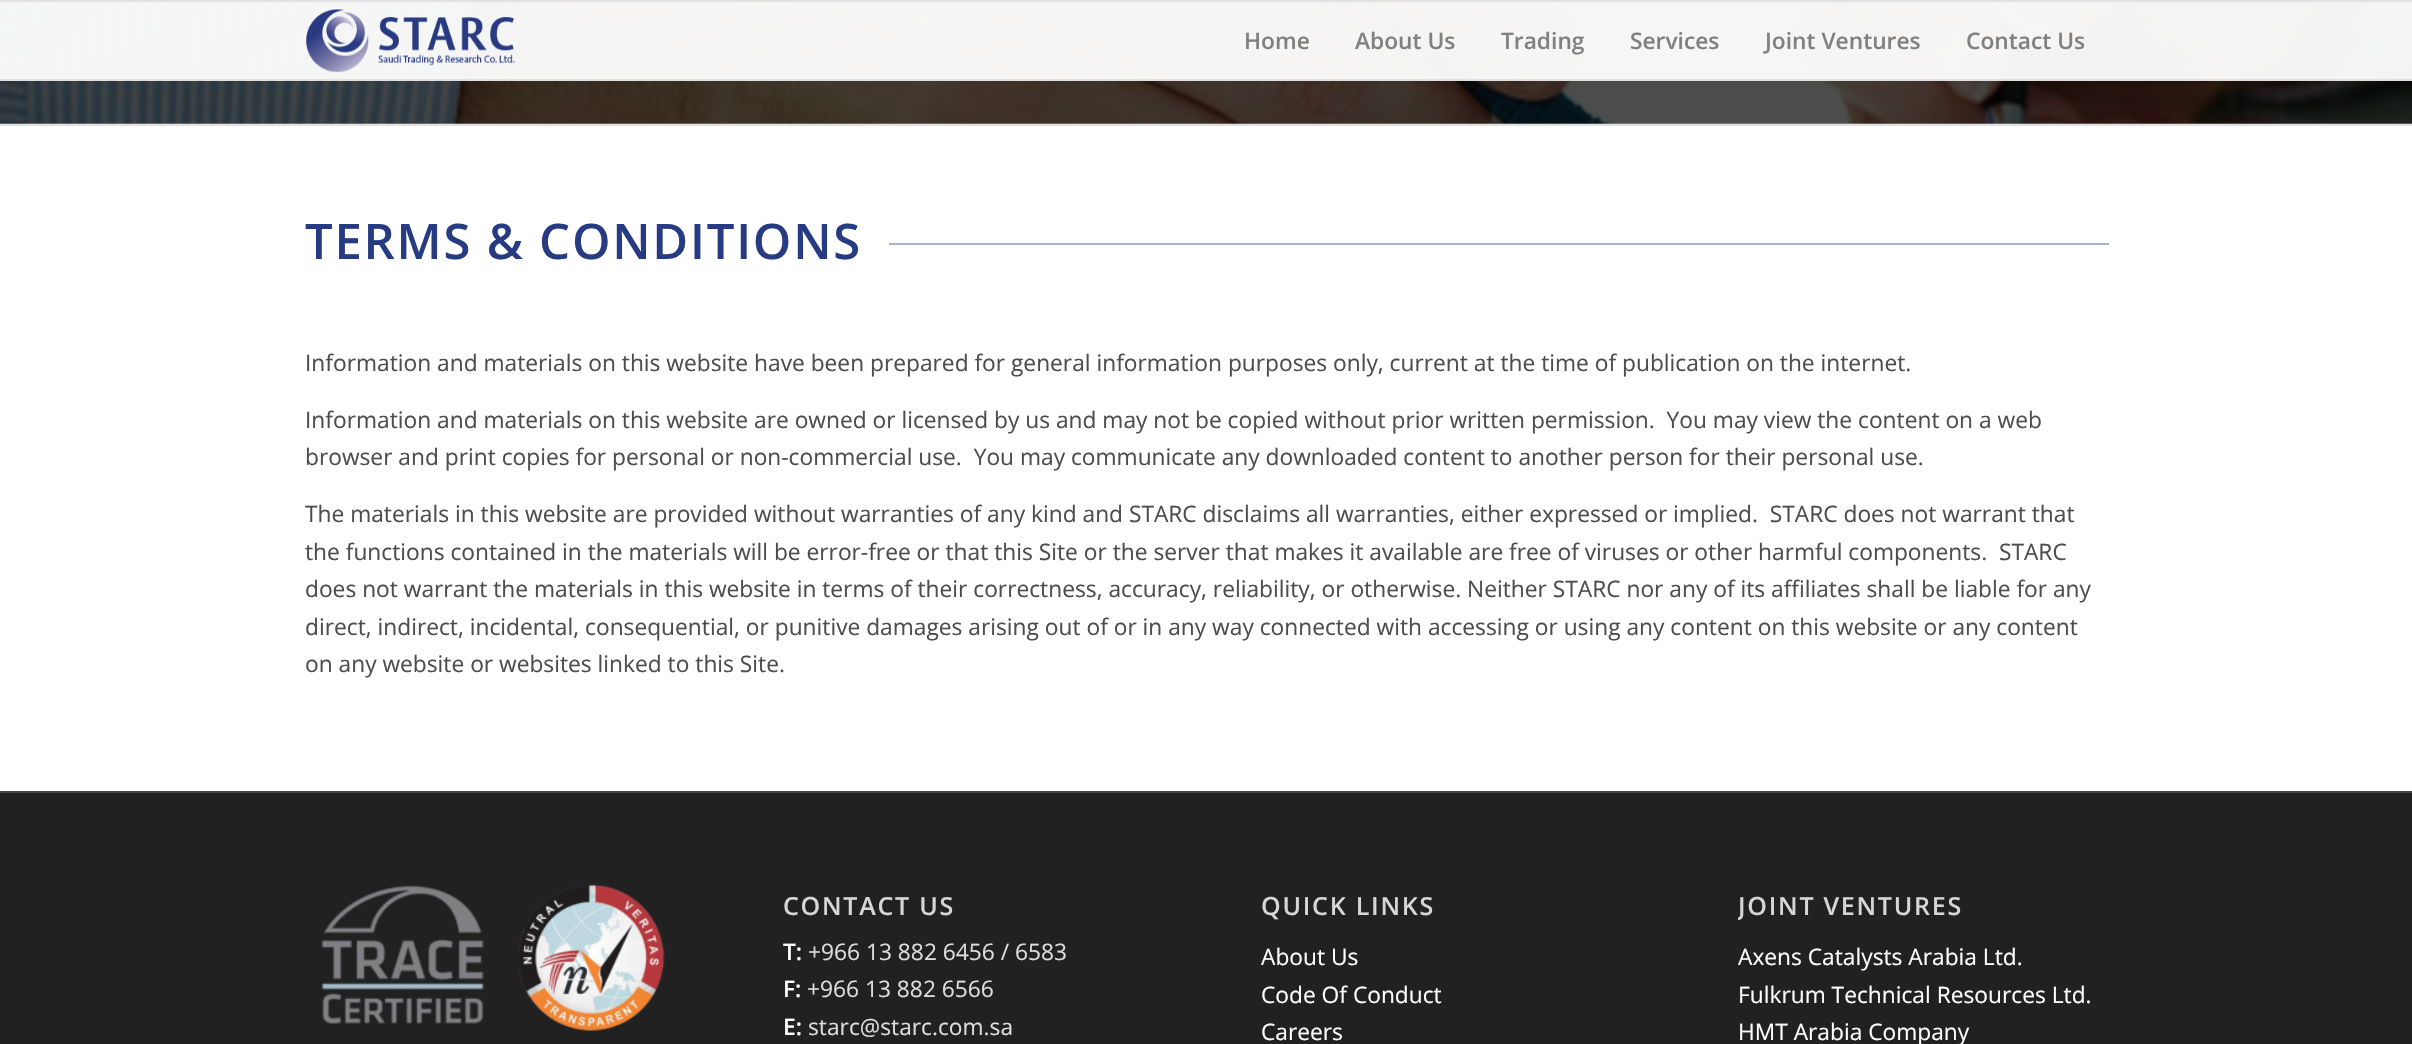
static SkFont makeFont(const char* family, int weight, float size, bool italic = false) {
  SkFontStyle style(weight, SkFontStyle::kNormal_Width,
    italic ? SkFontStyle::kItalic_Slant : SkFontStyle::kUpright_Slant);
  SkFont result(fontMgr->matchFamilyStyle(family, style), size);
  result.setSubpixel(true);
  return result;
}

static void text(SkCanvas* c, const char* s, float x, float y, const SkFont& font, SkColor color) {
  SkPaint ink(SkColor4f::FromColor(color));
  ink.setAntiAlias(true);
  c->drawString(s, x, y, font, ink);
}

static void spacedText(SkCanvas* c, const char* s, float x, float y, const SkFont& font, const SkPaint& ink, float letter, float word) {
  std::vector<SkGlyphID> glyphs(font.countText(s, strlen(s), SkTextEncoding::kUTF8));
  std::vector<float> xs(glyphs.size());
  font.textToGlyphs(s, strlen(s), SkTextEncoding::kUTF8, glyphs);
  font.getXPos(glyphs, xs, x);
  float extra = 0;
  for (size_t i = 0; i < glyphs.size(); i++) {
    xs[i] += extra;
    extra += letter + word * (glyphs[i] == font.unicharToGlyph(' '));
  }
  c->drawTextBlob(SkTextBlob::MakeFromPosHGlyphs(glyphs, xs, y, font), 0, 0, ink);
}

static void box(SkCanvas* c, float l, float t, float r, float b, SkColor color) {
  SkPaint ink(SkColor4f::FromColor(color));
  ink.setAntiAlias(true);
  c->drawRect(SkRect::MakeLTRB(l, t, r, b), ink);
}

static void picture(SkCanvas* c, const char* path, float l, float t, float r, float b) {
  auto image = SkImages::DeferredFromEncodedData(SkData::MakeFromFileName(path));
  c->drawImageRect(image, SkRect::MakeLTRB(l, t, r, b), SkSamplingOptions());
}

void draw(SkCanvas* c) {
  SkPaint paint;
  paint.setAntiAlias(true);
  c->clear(0xffffffff);
  picture(c, "img_02.png", 0, 2, 2412, 124);
  box(c, 0, 2, 2412, 79, 0xf2ffffff);
  box(c, 0, 0, 2412, 2, 0xffe1e1e1);
  box(c, 0, 79, 2412, 81, 0xffe1e1e1);
  picture(c, "img_01.png", 306, 9, 515, 73);
  SkFont face1 = makeFont("Open Sans", 600, 22.75f);
  text(c, "Home", 1244, 49, face1, 0xff808080);
  text(c, "About Us", 1355, 49, face1, 0xff808080);
  text(c, "Trading", 1501, 49, face1, 0xff808080);
  text(c, "Services", 1630, 49, face1, 0xff808080);
  text(c, "Joint Ventures", 1765, 49, face1, 0xff808080);
  text(c, "Contact Us", 1966, 49, face1, 0xff808080);
  box(c, 0, 124, 2412, 126, 0xffe1e1e1);
  SkFont face2 = makeFont("Open Sans", 600, 49);
  paint.setColor(0xff273b82);
  spacedText(c, "TERMS & CONDITIONS", 305, 259, face2, paint, 1.75f, 0);
  box(c, 889, 243, 2109, 245, 0xffa9b1cd);
  SkFont face3 = makeFont("Open Sans", 400, 22.75f);
  text(c, "Information and materials on this website have been prepared for general information purposes only, current at the time of publication on the internet.", 305, 371, face3, 0xff4d4d4d);
  text(c, "Information and materials on this website are owned or licensed by us and may not be copied without prior written permission.  You may view the content on a web", 305, 428, face3, 0xff4d4d4d);
  text(c, "browser and print copies for personal or non-commercial use.  You may communicate any downloaded content to another person for their personal use.", 305, 465, face3, 0xff4d4d4d);
  text(c, "The materials in this website are provided without warranties of any kind and STARC disclaims all warranties, either expressed or implied.  STARC does not warrant that", 305, 522, face3, 0xff4d4d4d);
  text(c, "the functions contained in the materials will be error-free or that this Site or the server that makes it available are free of viruses or other harmful components.  STARC", 305, 560, face3, 0xff4d4d4d);
  text(c, "does not warrant the materials in this website in terms of their correctness, accuracy, reliability, or otherwise. Neither STARC nor any of its affiliates shall be liable for any", 305, 597, face3, 0xff4d4d4d);
  text(c, "direct, indirect, incidental, consequential, or punitive damages arising out of or in any way connected with accessing or using any content on this website or any content", 305, 635, face3, 0xff4d4d4d);
  text(c, "on any website or websites linked to this Site.", 305, 672, face3, 0xff4d4d4d);
  box(c, 0, 793, 2412, 1044, 0xff212121);
  box(c, 0, 791, 2412, 793, 0xff444444);
  picture(c, "img_03.png", 321, 884, 665, 1031);
  SkFont face4 = makeFont("Open Sans", 600, 25);
  paint.setColor(0xffd6d6d6);
  spacedText(c, "CONTACT US", 783, 915, face4, paint, 1.75f, 0);
  text(c, "T:", 783, 960, face1, 0xffffffff);
  text(c, "+966 13 882 6456 / 6583", 808, 960, face3, 0xffdddddd);
  text(c, "F:", 783, 997, face1, 0xffffffff);
  text(c, "+966 13 882 6566", 807, 997, face3, 0xffdddddd);
  text(c, "E:", 783, 1035, face1, 0xffffffff);
  text(c, "starc@starc.com.sa", 808, 1035, face3, 0xffdddddd);
  spacedText(c, "QUICK LINKS", 1261, 915, face4, paint, 1.75f, 0);
  text(c, "About Us", 1261, 965, face3, 0xffffffff);
  text(c, "Code Of Conduct", 1261, 1003, face3, 0xffffffff);
  text(c, "Careers", 1261, 1040, face3, 0xffffffff);
  c->save();
  c->clipRect(SkRect::MakeLTRB(1738, 872, 2107, 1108));
  spacedText(c, "JOINT VENTURES", 1738, 915, face4, paint, 1.75f, 0);
  c->restore();
  text(c, "Axens Catalysts Arabia Ltd.", 1738, 965, face3, 0xffffffff);
  text(c, "Fulkrum Technical Resources Ltd.", 1738, 1003, face3, 0xffffffff);
  text(c, "HMT Arabia Company", 1738, 1040, face3, 0xffffffff);
}
